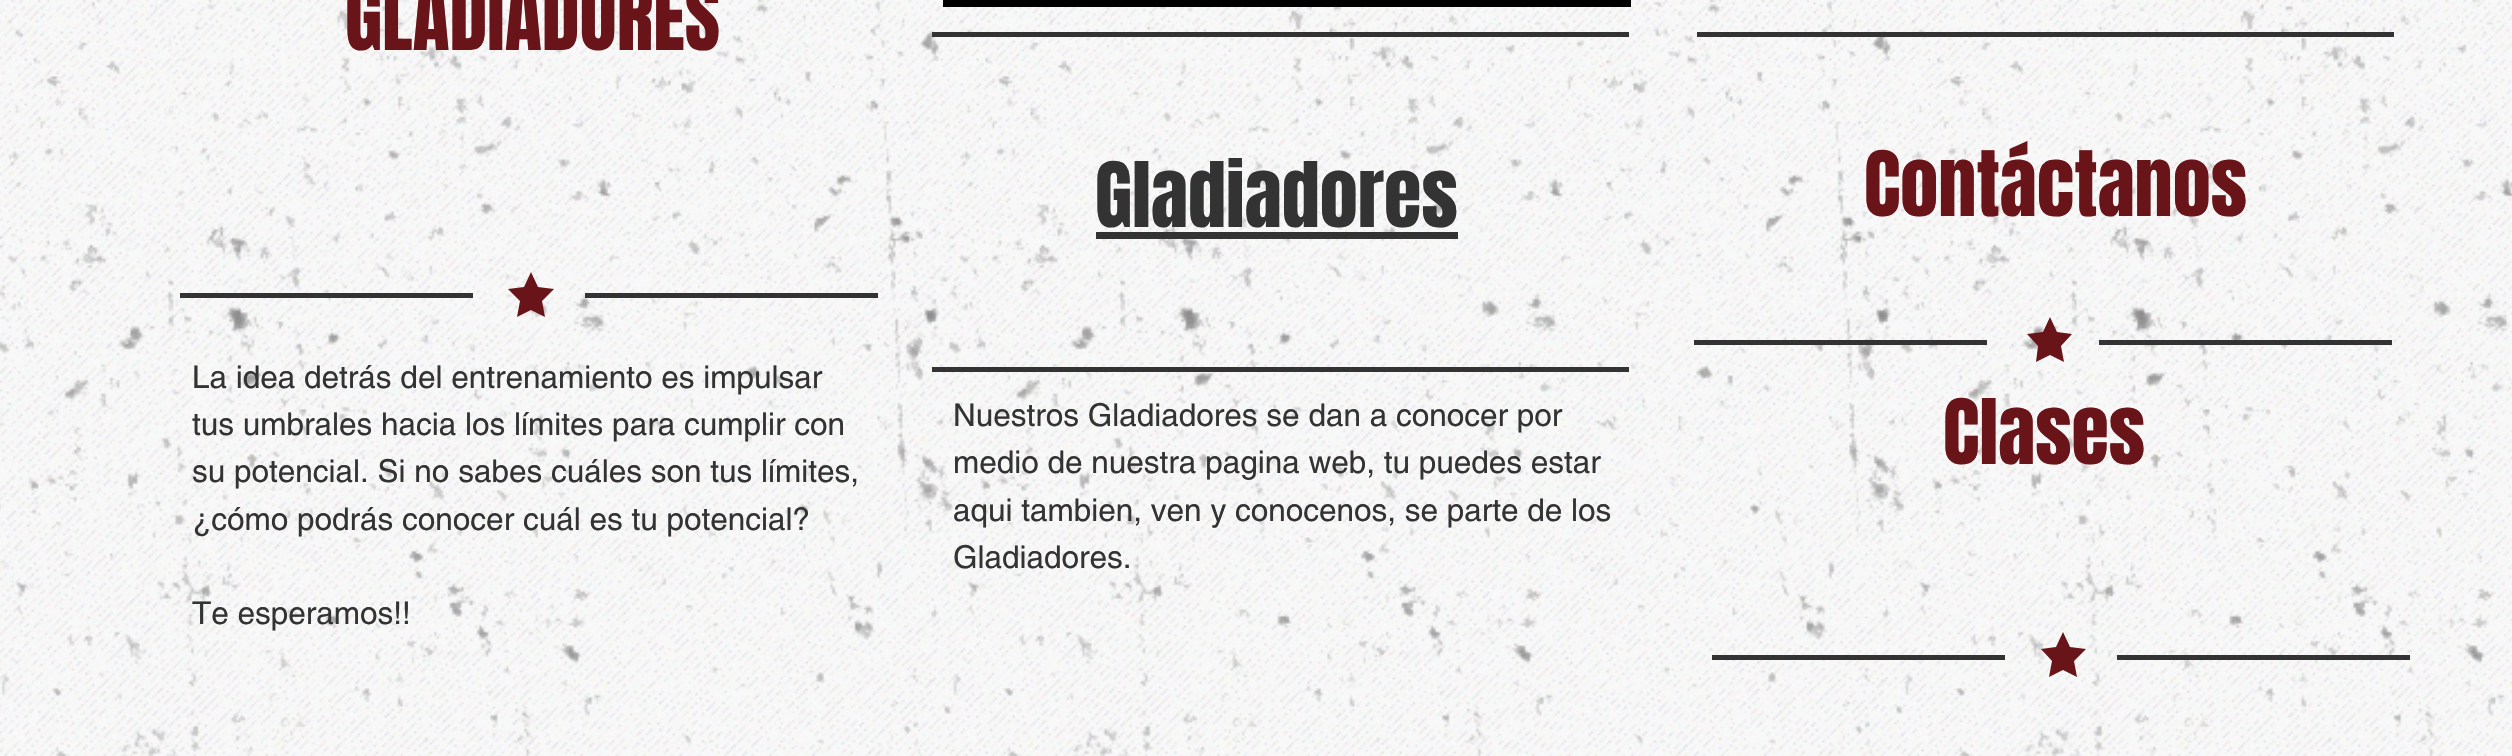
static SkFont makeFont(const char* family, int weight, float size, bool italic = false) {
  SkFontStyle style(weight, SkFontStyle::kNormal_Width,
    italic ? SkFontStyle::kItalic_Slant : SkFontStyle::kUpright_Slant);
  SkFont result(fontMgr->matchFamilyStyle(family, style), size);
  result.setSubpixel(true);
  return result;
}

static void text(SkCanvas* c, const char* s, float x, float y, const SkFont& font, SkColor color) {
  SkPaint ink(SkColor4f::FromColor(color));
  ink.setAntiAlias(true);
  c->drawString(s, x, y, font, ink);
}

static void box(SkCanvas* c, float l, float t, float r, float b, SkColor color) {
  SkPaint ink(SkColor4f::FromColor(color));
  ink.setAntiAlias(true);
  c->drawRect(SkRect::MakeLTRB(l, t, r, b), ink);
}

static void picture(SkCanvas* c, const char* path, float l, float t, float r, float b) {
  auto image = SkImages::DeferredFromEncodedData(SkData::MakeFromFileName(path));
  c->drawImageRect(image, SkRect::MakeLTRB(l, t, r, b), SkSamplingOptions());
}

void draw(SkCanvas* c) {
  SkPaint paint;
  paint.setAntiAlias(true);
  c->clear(0xfff8f8f8);
  picture(c, "img_01.png", 0, 0, 2512, 756);
  SkFont face1 = makeFont("Anton", 400, 76.5f);
  text(c, "GLADIADORES", 345, 50, face1, 0xff691419);
  box(c, 943, 0, 1631, 7, 0xff000000);
  box(c, 932, 32, 1629, 37, 0xff333333);
  box(c, 1697, 32, 2394, 37, 0xff333333);
  text(c, "Gladiadores", 1095, 227, face1, 0xff333333);
  box(c, 1096, 232, 1458, 239, 0xff333333);
  text(c, "Contáctanos", 1864, 216, face1, 0xff691419);
  box(c, 180, 293, 473, 298, 0xff333333);
  paint.setColor(0xff691419);
  c->drawPath(SkPathBuilder().moveTo(531, 272).lineTo(538, 287).lineTo(554, 289).lineTo(542, 301).lineTo(545, 317).lineTo(531, 310).lineTo(517, 317).lineTo(520, 301).lineTo(508, 289).lineTo(524, 287).close().detach(), paint);
  box(c, 585, 293, 878, 298, 0xff333333);
  box(c, 1694, 340, 1987, 345, 0xff333333);
  c->drawPath(SkPathBuilder().moveTo(2050, 317).lineTo(2057, 332).lineTo(2072, 334).lineTo(2061, 346).lineTo(2064, 362).lineTo(2050, 355).lineTo(2036, 362).lineTo(2038, 346).lineTo(2027, 334).lineTo(2043, 332).close().detach(), paint);
  box(c, 2099, 340, 2392, 345, 0xff333333);
  SkFont face2 = makeFont("helvetica", 400, 31.5f);
  text(c, "La idea detrás del entrenamiento es impulsar", 192, 388, face2, 0xff333333);
  text(c, "tus umbrales hacia los límites para cumplir con", 192, 435, face2, 0xff333333);
  text(c, "su potencial. Si no sabes cuáles son tus límites,", 192, 482, face2, 0xff333333);
  text(c, "¿cómo podrás conocer cuál es tu potencial?", 192, 530, face2, 0xff333333);
  text(c, "Te esperamos!!", 192, 624, face2, 0xff333333);
  box(c, 932, 367, 1629, 372, 0xff333333);
  text(c, "Nuestros Gladiadores se dan a conocer por", 953, 426, face2, 0xff333333);
  text(c, "medio de nuestra pagina web, tu puedes estar", 953, 473, face2, 0xff333333);
  text(c, "aqui tambien, ven y conocenos, se parte de los", 953, 521, face2, 0xff333333);
  text(c, "Gladiadores.", 953, 568, face2, 0xff333333);
  text(c, "Clases", 1943, 464, face1, 0xff691419);
  box(c, 1712, 655, 2005, 660, 0xff333333);
  c->drawPath(SkPathBuilder().moveTo(2063, 632).lineTo(2070, 647).lineTo(2086, 649).lineTo(2074, 661).lineTo(2077, 677).lineTo(2063, 670).lineTo(2049, 677).lineTo(2052, 661).lineTo(2041, 649).lineTo(2056, 647).close().detach(), paint);
  box(c, 2117, 655, 2410, 660, 0xff333333);
}
